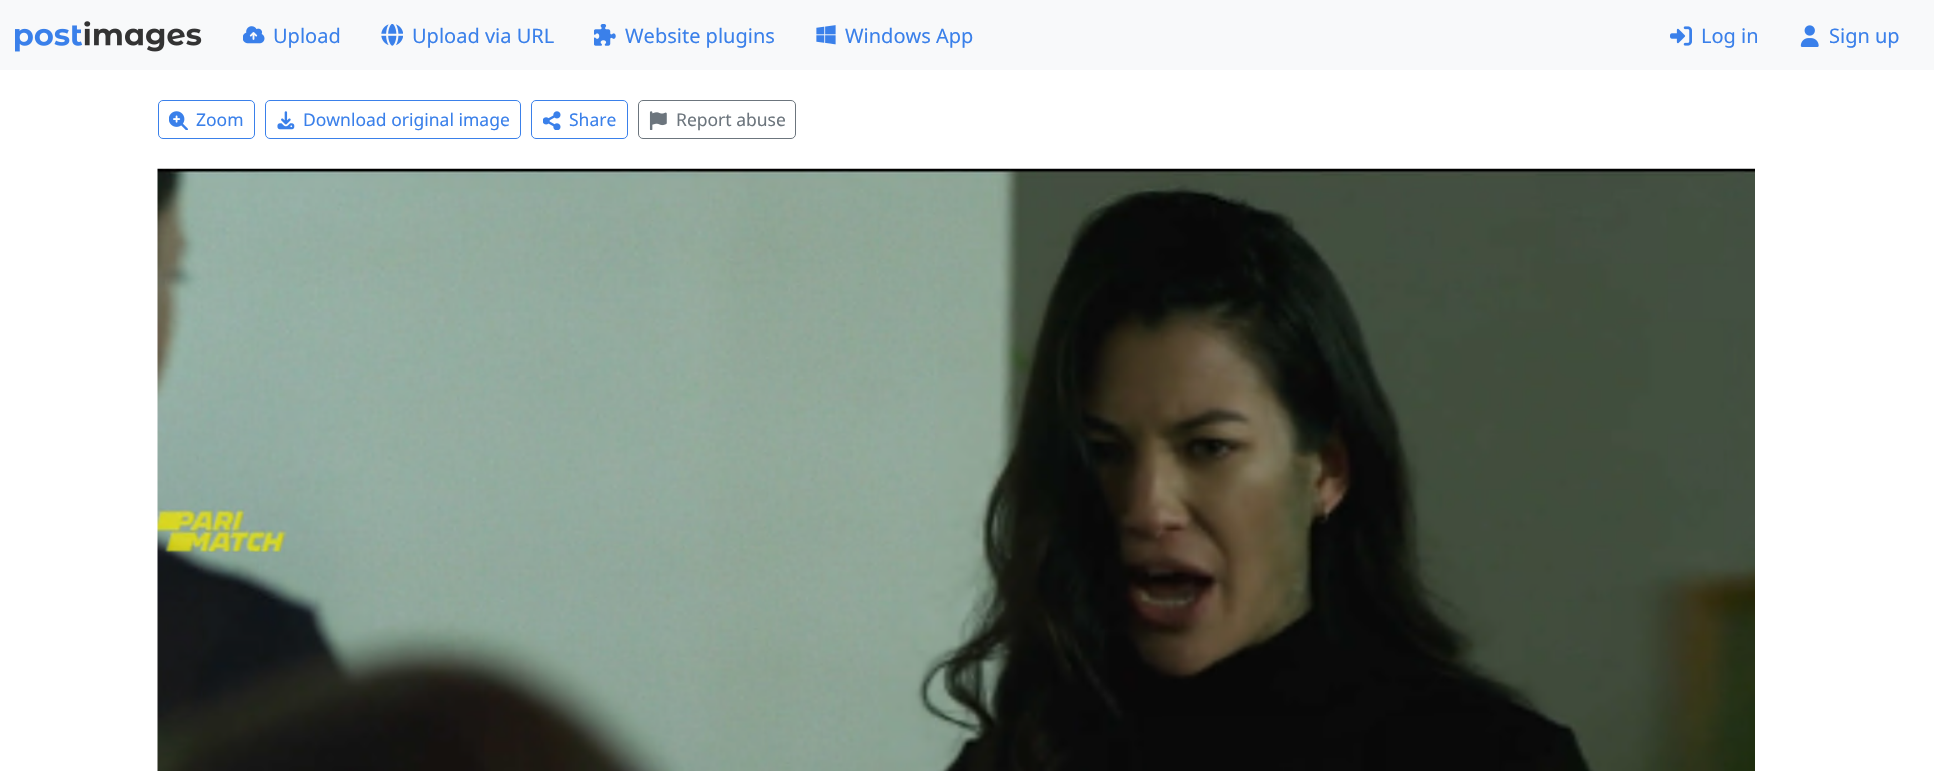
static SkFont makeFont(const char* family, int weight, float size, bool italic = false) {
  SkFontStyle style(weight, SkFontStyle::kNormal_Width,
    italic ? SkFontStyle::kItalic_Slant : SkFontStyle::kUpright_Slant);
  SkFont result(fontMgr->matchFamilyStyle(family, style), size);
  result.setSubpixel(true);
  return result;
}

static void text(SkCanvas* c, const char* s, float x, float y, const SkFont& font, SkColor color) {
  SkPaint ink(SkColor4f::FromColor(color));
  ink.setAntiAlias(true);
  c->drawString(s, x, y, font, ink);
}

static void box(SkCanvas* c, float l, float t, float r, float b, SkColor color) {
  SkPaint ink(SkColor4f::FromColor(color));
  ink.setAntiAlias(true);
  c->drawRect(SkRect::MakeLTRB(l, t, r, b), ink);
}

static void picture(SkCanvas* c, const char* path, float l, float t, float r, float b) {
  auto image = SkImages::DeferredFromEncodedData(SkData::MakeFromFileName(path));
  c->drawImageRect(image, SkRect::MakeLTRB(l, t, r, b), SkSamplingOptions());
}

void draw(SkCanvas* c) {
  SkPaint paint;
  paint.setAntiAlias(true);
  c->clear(0xffffffff);
  box(c, 0, 0, 1934, 70, 0xfff8f9fa);
  picture(c, "img_01.png", 15, 21, 202, 52);
  picture(c, "img_02.png", 243, 26, 265, 44);
  SkFont face1 = makeFont("Noto Sans", 400, 20);
  text(c, "Upload", 273, 43, face1, 0xff3a80ea);
  picture(c, "img_03.png", 381, 24, 403, 46);
  text(c, "Upload via URL", 412, 43, face1, 0xff3a80ea);
  picture(c, "img_04.png", 594, 24, 616, 46);
  text(c, "Website plugins", 625, 43, face1, 0xff3a80ea);
  picture(c, "img_05.png", 816, 25, 836, 45);
  text(c, "Windows App", 845, 43, face1, 0xff3a80ea);
  picture(c, "img_06.png", 1670, 26, 1692, 46);
  text(c, "Log in", 1701, 43, face1, 0xff3a80ea);
  picture(c, "img_07.png", 1800, 25, 1819, 47);
  text(c, "Sign up", 1829, 43, face1, 0xff3a80ea);
  paint.setStyle(SkPaint::kStroke_Style);
  paint.setStrokeWidth(1);
  paint.setColor(0xff3a80ea);
  c->drawRoundRect(SkRect::MakeLTRB(158.5f, 100.5f, 254.5f, 138.5f), 4.5f, 4.5f, paint);
  picture(c, "img_08.png", 169, 111, 188, 130);
  SkFont face2 = makeFont("Noto Sans", 400, 17.5f);
  text(c, "Zoom", 196, 126, face2, 0xff3a80ea);
  c->drawRoundRect(SkRect::MakeLTRB(265.5f, 100.5f, 520.5f, 138.5f), 4.5f, 4.5f, paint);
  picture(c, "img_09.png", 277, 111, 295, 130);
  text(c, "Download original image", 303, 126, face2, 0xff3a80ea);
  c->drawRoundRect(SkRect::MakeLTRB(531.5f, 100.5f, 627.5f, 138.5f), 4.5f, 4.5f, paint);
  picture(c, "img_10.png", 543, 111, 561, 130);
  text(c, "Share", 569, 126, face2, 0xff3a80ea);
  paint.setColor(0xff6c757d);
  c->drawRoundRect(SkRect::MakeLTRB(638.5f, 100.5f, 795.5f, 138.5f), 4.5f, 4.5f, paint);
  picture(c, "img_11.png", 649, 111, 667, 130);
  text(c, "Report abuse", 676, 126, face2, 0xff6c757d);
  picture(c, "img_12.png", 157, 168, 1755, 771);
}
